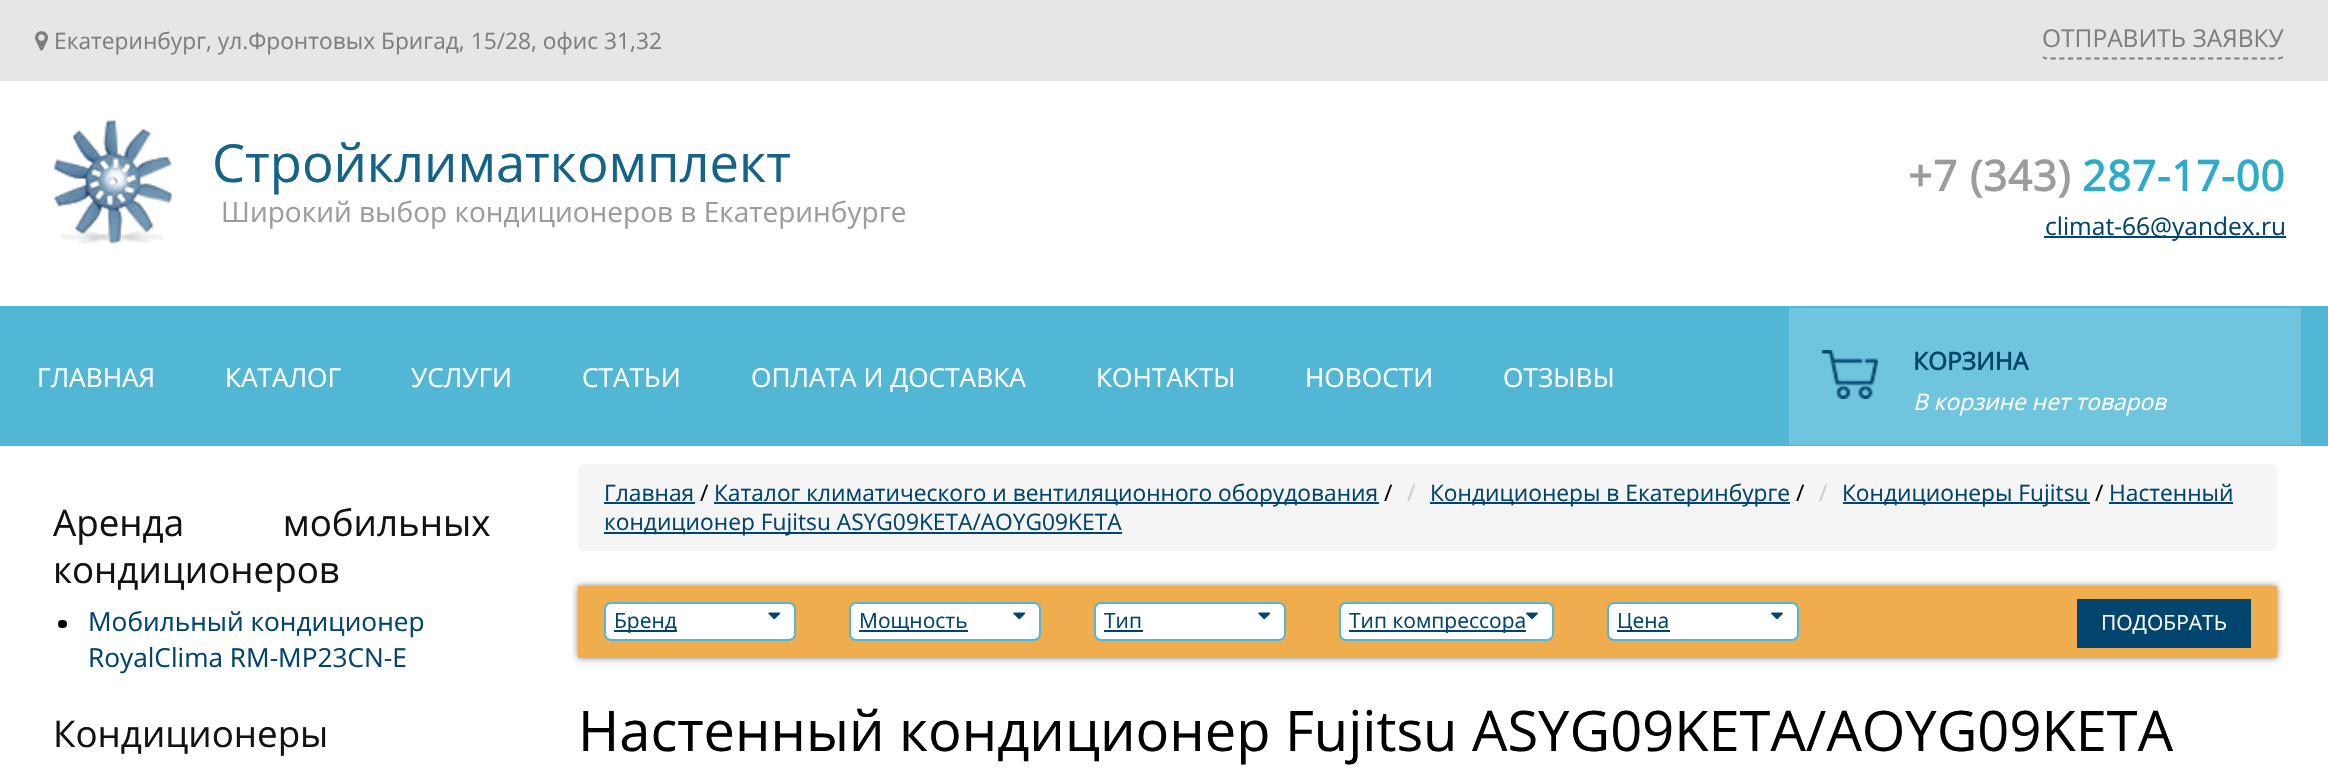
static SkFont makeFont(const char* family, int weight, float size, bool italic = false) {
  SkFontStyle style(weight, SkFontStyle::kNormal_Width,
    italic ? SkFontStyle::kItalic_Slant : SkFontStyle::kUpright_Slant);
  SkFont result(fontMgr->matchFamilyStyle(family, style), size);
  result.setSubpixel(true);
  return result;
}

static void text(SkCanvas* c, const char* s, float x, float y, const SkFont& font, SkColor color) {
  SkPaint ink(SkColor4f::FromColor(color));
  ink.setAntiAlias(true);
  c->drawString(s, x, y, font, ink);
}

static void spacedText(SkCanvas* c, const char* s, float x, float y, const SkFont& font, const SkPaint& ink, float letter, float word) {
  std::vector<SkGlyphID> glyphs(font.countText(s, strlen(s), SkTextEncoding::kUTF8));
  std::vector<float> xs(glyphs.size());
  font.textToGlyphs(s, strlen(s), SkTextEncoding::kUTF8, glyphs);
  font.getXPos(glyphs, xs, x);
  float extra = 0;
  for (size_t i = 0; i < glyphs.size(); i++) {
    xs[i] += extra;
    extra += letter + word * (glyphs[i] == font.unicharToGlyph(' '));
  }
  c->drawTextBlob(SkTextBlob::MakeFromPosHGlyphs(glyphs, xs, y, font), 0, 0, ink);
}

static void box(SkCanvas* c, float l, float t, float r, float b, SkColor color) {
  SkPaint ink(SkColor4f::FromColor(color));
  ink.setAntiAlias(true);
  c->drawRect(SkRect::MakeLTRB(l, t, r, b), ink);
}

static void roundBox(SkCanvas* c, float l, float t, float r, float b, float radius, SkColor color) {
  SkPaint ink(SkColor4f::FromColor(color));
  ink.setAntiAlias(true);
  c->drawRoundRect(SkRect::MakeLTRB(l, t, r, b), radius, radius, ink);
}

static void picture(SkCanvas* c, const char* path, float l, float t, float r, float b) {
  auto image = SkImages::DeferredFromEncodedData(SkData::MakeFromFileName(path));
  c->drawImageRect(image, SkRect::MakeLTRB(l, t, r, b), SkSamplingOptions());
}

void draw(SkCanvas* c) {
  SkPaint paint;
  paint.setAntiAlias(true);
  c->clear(0xffffffff);
  box(c, 0, 0, 2328, 81, 0xffe6e6e6);
  picture(c, "img_01.png", 35, 31, 48, 51);
  SkFont face1 = makeFont("Open Sans", 400, 22.75f);
  text(c, "Екатеринбург, ул.Фронтовых Бригад, 15/28, офис 31,32", 54, 49, face1, 0xff7e7e7e);
  paint.setStyle(SkPaint::kStroke_Style);
  paint.setStrokeWidth(1.8f);
  paint.setColor(0xff7e7e7e);
  paint.setPathEffect(SkDashPathEffect::Make({{5.25f, 3.5f}}, 0));
  c->drawPath(SkPathBuilder().moveTo(2283, 57).cubicTo(2281.5f, 58, 2280, 58.5f, 2278.5f, 58.5f).lineTo(2047.5f, 58.5f).cubicTo(2046, 58.5f, 2044.5f, 58, 2043, 57).detach(), paint);
  paint.setPathEffect(nullptr);
  SkFont face2 = makeFont("Open Sans", 400, 24.5f);
  text(c, "ОТПРАВИТЬ ЗАЯВКУ", 2042, 47, face2, 0xff7e7e7e);
  picture(c, "img_02.png", 53, 119, 172, 244);
  SkFont face3 = makeFont("Open Sans", 400, 52.5f);
  text(c, "Стройклиматкомплект", 212, 182, face3, 0xff166388);
  SkFont face4 = makeFont("Open Sans", 400, 28);
  text(c, "Широкий выбор кондиционеров в Екатеринбурге", 221, 222, face4, 0xff9c9c9c);
  SkFont face5 = makeFont("Open Sans", 700, 42);
  paint.setStyle(SkPaint::kFill_Style);
  paint.setColor(0xff9c9c9c);
  spacedText(c, "+7 (343)", 1908, 191, face5, paint, 0.9f, 0);
  paint.setColor(0xff2eaacb);
  spacedText(c, "287-17-00", 2082, 191, face5, paint, 0.9f, 0);
  box(c, 2044, 236, 2286, 238, 0xff01446d);
  text(c, "climat-66@yandex.ru", 2045, 235, face2, 0xff01446d);
  box(c, 0, 306, 2328, 446, 0xff52b7d4);
  SkFont face6 = makeFont("Open Sans", 400, 26.25f);
  text(c, "ГЛАВНАЯ", 37, 387, face6, 0xffffffff);
  text(c, "КАТАЛОГ", 225, 387, face6, 0xffffffff);
  text(c, "УСЛУГИ", 411, 387, face6, 0xffffffff);
  text(c, "СТАТЬИ", 582, 387, face6, 0xffffffff);
  text(c, "ОПЛАТА И ДОСТАВКА", 751, 387, face6, 0xffffffff);
  text(c, "КОНТАКТЫ", 1096, 387, face6, 0xffffffff);
  text(c, "НОВОСТИ", 1305, 387, face6, 0xffffffff);
  text(c, "ОТЗЫВЫ", 1503, 387, face6, 0xffffffff);
  box(c, 1789, 308, 2301, 445, 0xff6fc5de);
  picture(c, "img_03.png", 1821, 350, 1878, 399);
  SkFont face7 = makeFont("Open Sans", 700, 24.5f);
  text(c, "КОРЗИНА", 1913, 370, face7, 0xff01446d);
  SkFont face8 = makeFont("Open Sans", 400, 22.75f, true);
  text(c, "В корзине нет товаров", 1913, 410, face8, 0xffffffff);
  SkFont face9 = makeFont("Open Sans", 400, 36.75f);
  paint.setColor(0xff121212);
  spacedText(c, "Аренда мобильных", 53, 536, face9, paint, 0, 89);
  text(c, "кондиционеров", 53, 583, face9, 0xff121212);
  roundBox(c, 58, 620, 67, 628, 4, 0xff000000);
  text(c, "Мобильный кондиционер", 88, 631, face6, 0xff01446d);
  text(c, "RoyalClima RM-MP23CN-E", 88, 667, face6, 0xff01446d);
  text(c, "Кондиционеры", 53, 747, face9, 0xff121212);
  roundBox(c, 578, 464, 2277, 551, 7, 0xfff5f5f5);
  text(c, "Главная", 604, 501, face1, 0xff01446d);
  box(c, 604, 502, 695, 504, 0xff01446d);
  text(c, "/", 700, 501, face1, 0xff000000);
  box(c, 714, 502, 1379, 504, 0xff01446d);
  text(c, "Каталог климатического и вентиляционного оборудования", 714, 501, face1, 0xff01446d);
  text(c, "/", 1384, 501, face1, 0xff000000);
  text(c, "/", 1407, 501, face1, 0xffcccccc);
  box(c, 1430, 502, 1790, 504, 0xff01446d);
  text(c, "Кондиционеры в Екатеринбурге", 1430, 501, face1, 0xff01446d);
  text(c, "/", 1796, 501, face1, 0xff000000);
  text(c, "/", 1819, 501, face1, 0xffcccccc);
  box(c, 1843, 502, 2090, 504, 0xff01446d);
  text(c, "Кондиционеры Fujitsu", 1842, 501, face1, 0xff01446d);
  text(c, "/", 2095, 501, face1, 0xff000000);
  text(c, "Настенный", 2109, 501, face1, 0xff01446d);
  box(c, 2109, 502, 2233, 504, 0xff01446d);
  box(c, 604, 532, 1122, 534, 0xff01446d);
  text(c, "кондиционер Fujitsu ASYG09KETA/AOYG09KETA", 604, 530, face1, 0xff01446d);
  paint.setColor(0x80000000);
  paint.setMaskFilter(SkMaskFilter::MakeBlur(kNormal_SkBlurStyle, 3.5f));
  c->drawRect(SkRect::MakeLTRB(578, 586, 2277, 658), paint);
  paint.setMaskFilter(nullptr);
  box(c, 578, 586, 2277, 658, 0xfff0ad4e);
  paint.setColor(0xffffffff);
  c->drawRoundRect(SkRect::MakeLTRB(605, 603, 795, 640), 6, 6, paint);
  paint.setStyle(SkPaint::kStroke_Style);
  paint.setStrokeWidth(2);
  paint.setColor(0xff52b7d4);
  c->drawRoundRect(SkRect::MakeLTRB(605, 603, 795, 640), 6, 6, paint);
  box(c, 614, 630, 677, 632, 0xff01446d);
  SkFont face10 = makeFont("Open Sans", 400, 21);
  text(c, "Бренд", 614, 628, face10, 0xff01446d);
  picture(c, "img_04.png", 768, 612, 781, 620);
  paint.setStyle(SkPaint::kFill_Style);
  paint.setColor(0xffffffff);
  c->drawRoundRect(SkRect::MakeLTRB(850, 603, 1040, 640), 6, 6, paint);
  paint.setStyle(SkPaint::kStroke_Style);
  paint.setColor(0xff52b7d4);
  c->drawRoundRect(SkRect::MakeLTRB(850, 603, 1040, 640), 6, 6, paint);
  box(c, 859, 630, 968, 632, 0xff01446d);
  text(c, "Мощность", 859, 628, face10, 0xff01446d);
  picture(c, "img_04.png", 1013, 612, 1026, 620);
  paint.setStyle(SkPaint::kFill_Style);
  paint.setColor(0xffffffff);
  c->drawRoundRect(SkRect::MakeLTRB(1095, 603, 1285, 640), 6, 6, paint);
  paint.setStyle(SkPaint::kStroke_Style);
  paint.setColor(0xff52b7d4);
  c->drawRoundRect(SkRect::MakeLTRB(1095, 603, 1285, 640), 6, 6, paint);
  text(c, "Тип", 1104, 628, face10, 0xff01446d);
  box(c, 1104, 630, 1143, 632, 0xff01446d);
  picture(c, "img_04.png", 1258, 612, 1271, 620);
  paint.setStyle(SkPaint::kFill_Style);
  paint.setColor(0xffffffff);
  c->drawRoundRect(SkRect::MakeLTRB(1340, 603, 1553, 640), 6, 6, paint);
  paint.setStyle(SkPaint::kStroke_Style);
  paint.setColor(0xff52b7d4);
  c->drawRoundRect(SkRect::MakeLTRB(1340, 603, 1553, 640), 6, 6, paint);
  box(c, 1349, 630, 1526, 632, 0xff01446d);
  text(c, "Тип компрессора", 1349, 628, face10, 0xff01446d);
  picture(c, "img_05.png", 1526, 612, 1538, 620);
  paint.setStyle(SkPaint::kFill_Style);
  paint.setColor(0xffffffff);
  c->drawRoundRect(SkRect::MakeLTRB(1608, 603, 1798, 640), 6, 6, paint);
  paint.setStyle(SkPaint::kStroke_Style);
  paint.setColor(0xff52b7d4);
  c->drawRoundRect(SkRect::MakeLTRB(1608, 603, 1798, 640), 6, 6, paint);
  box(c, 1617, 630, 1670, 632, 0xff01446d);
  text(c, "Цена", 1617, 628, face10, 0xff01446d);
  picture(c, "img_05.png", 1771, 612, 1783, 620);
  box(c, 2077, 599, 2251, 648, 0xff01446d);
  text(c, "ПОДОБРАТЬ", 2101, 630, face10, 0xffffffff);
  SkFont face11 = makeFont("Open Sans", 400, 56);
  text(c, "Настенный кондиционер Fujitsu ASYG09KETA/AOYG09KETA", 578, 751, face11, 0xff000000);
}
